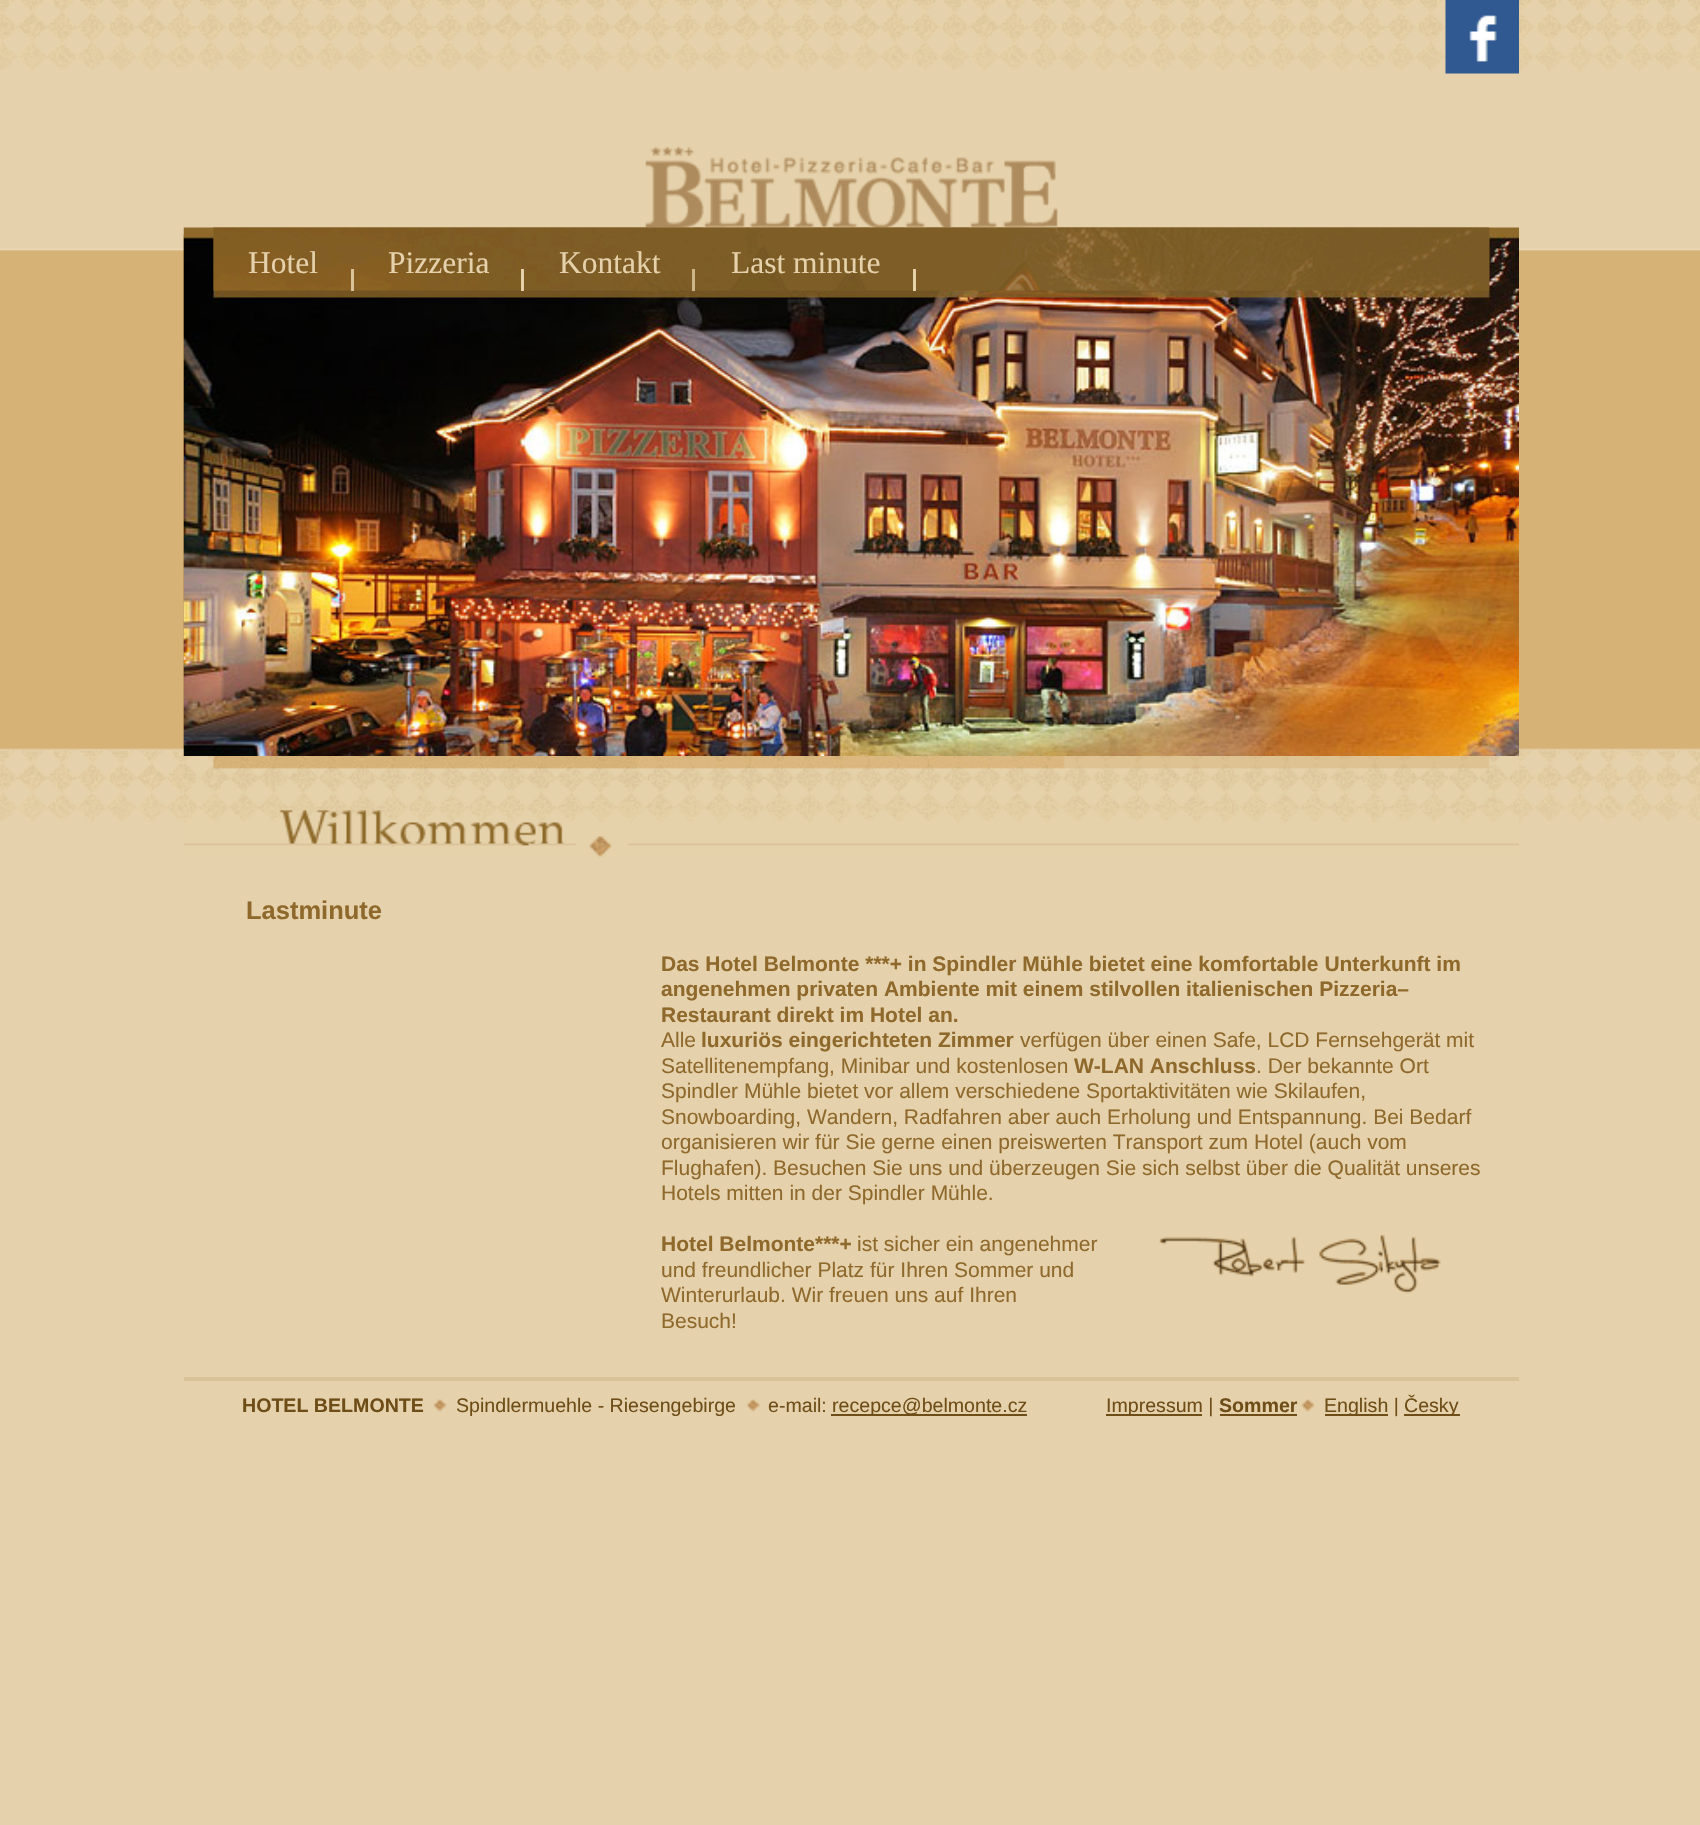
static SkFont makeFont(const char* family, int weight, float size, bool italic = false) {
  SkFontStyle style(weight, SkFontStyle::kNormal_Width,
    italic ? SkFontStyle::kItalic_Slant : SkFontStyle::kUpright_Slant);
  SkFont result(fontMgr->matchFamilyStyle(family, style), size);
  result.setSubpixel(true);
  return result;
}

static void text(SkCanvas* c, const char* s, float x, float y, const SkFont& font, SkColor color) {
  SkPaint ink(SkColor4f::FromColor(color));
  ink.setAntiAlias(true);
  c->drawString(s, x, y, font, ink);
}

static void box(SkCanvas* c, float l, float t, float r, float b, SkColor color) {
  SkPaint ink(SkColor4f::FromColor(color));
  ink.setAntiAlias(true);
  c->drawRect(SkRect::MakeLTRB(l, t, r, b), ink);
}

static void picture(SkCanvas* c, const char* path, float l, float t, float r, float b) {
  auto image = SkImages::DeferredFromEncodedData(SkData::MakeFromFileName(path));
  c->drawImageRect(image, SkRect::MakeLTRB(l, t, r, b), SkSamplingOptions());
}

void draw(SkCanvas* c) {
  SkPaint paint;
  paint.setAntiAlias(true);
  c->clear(0xffe5d1ab);
  picture(c, "img_01.png", 0, 0, 1700, 822);
  picture(c, "img_02.png", 1445, 0, 1519, 74);
  picture(c, "img_03.png", 183, 227, 1519, 858);
  picture(c, "img_04.png", 645, 146, 1058, 228);
  picture(c, "img_05.png", 183, 234, 1519, 756);
  picture(c, "img_06.png", 213, 227, 1490, 291);
  box(c, 351, 269, 354, 291, 0xdee6d1a9);
  SkFont face1 = makeFont("Liberation Serif", 400, 31.5f);
  text(c, "Hotel", 248, 273, face1, 0xffe5d1ab);
  box(c, 521, 269, 524, 291, 0xffe6d2aa);
  text(c, "Pizzeria", 388, 273, face1, 0xffe5d1ab);
  box(c, 692, 269, 695, 291, 0xbfe6d2aa);
  text(c, "Kontakt", 559, 273, face1, 0xffe5d1ab);
  box(c, 913, 269, 916, 291, 0xffe6d2aa);
  text(c, "Last minute", 731, 273, face1, 0xffe5d1ab);
  SkFont face2 = makeFont("Liberation Sans", 700, 25.5f);
  text(c, "Lastminute", 246, 919, face2, 0xff8f692b);
  SkFont face3 = makeFont("Liberation Sans", 700, 21);
  text(c, "Das Hotel Belmonte ***+ in Spindler Mühle bietet eine komfortable Unterkunft im", 661, 971, face3, 0xff8f692b);
  text(c, "angenehmen privaten Ambiente mit einem stilvollen italienischen Pizzeria–", 661, 996, face3, 0xff8f692b);
  text(c, "Restaurant direkt im Hotel an.", 661, 1022, face3, 0xff8f692b);
  SkFont face4 = makeFont("Liberation Sans", 400, 21);
  text(c, "Alle", 661, 1047, face4, 0xff8f692b);
  text(c, "luxuriös eingerichteten Zimmer", 701, 1047, face3, 0xff8f692b);
  text(c, "verfügen über einen Safe, LCD Fernsehgerät mit", 1020, 1047, face4, 0xff8f692b);
  text(c, "Satellitenempfang, Minibar und kostenlosen", 661, 1073, face4, 0xff8f692b);
  text(c, "W-LAN Anschluss", 1074, 1073, face3, 0xff8f692b);
  text(c, ". Der bekannte Ort", 1256, 1073, face4, 0xff8f692b);
  text(c, "Spindler Mühle bietet vor allem verschiedene Sportaktivitäten wie Skilaufen,", 661, 1098, face4, 0xff8f692b);
  text(c, "Snowboarding, Wandern, Radfahren aber auch Erholung und Entspannung. Bei Bedarf", 661, 1124, face4, 0xff8f692b);
  text(c, "organisieren wir für Sie gerne einen preiswerten Transport zum Hotel (auch vom", 661, 1149, face4, 0xff8f692b);
  text(c, "Flughafen). Besuchen Sie uns und überzeugen Sie sich selbst über die Qualität unseres", 661, 1175, face4, 0xff8f692b);
  text(c, "Hotels mitten in der Spindler Mühle.", 661, 1200, face4, 0xff8f692b);
  text(c, "Hotel Belmonte***+", 661, 1251, face3, 0xff8f692b);
  picture(c, "img_07.png", 1159, 1235, 1441, 1294);
  text(c, "ist sicher ein angenehmer", 857, 1251, face4, 0xff8f692b);
  text(c, "und freundlicher Platz für Ihren Sommer und", 661, 1277, face4, 0xff8f692b);
  text(c, "Winterurlaub. Wir freuen uns auf Ihren", 661, 1302, face4, 0xff8f692b);
  text(c, "Besuch!", 661, 1328, face4, 0xff8f692b);
  box(c, 184, 1377, 1519, 1381, 0xffd8c298);
  SkFont face5 = makeFont("Liberation Sans", 700, 19.6f);
  text(c, "HOTEL BELMONTE", 242, 1412, face5, 0xff6e4d17);
  picture(c, "img_08.png", 433, 1399, 447, 1412);
  SkFont face6 = makeFont("Liberation Sans", 400, 19.6f);
  text(c, "Spindlermuehle - Riesengebirge", 456, 1412, face6, 0xff6e4d17);
  picture(c, "img_09.png", 747, 1399, 760, 1412);
  text(c, "e-mail:", 768, 1412, face6, 0xff6e4d17);
  box(c, 831, 1414, 1027, 1416, 0xff6e4d17);
  text(c, "recepce@belmonte.cz", 832, 1412, face6, 0xff6e4d17);
  box(c, 1106, 1414, 1202, 1416, 0xff6e4d17);
  text(c, "Impressum |", 1106, 1412, face6, 0xff6e4d17);
  text(c, "Sommer", 1219, 1412, face5, 0xff6e4d17);
  box(c, 1220, 1414, 1297, 1416, 0xff6e4d17);
  picture(c, "img_10.png", 1301, 1399, 1315, 1412);
  box(c, 1325, 1414, 1388, 1416, 0xff6e4d17);
  text(c, "English |", 1324, 1412, face6, 0xff6e4d17);
  box(c, 1404, 1414, 1460, 1416, 0xff6e4d17);
  text(c, "Česky", 1404, 1412, face6, 0xff6e4d17);
}
